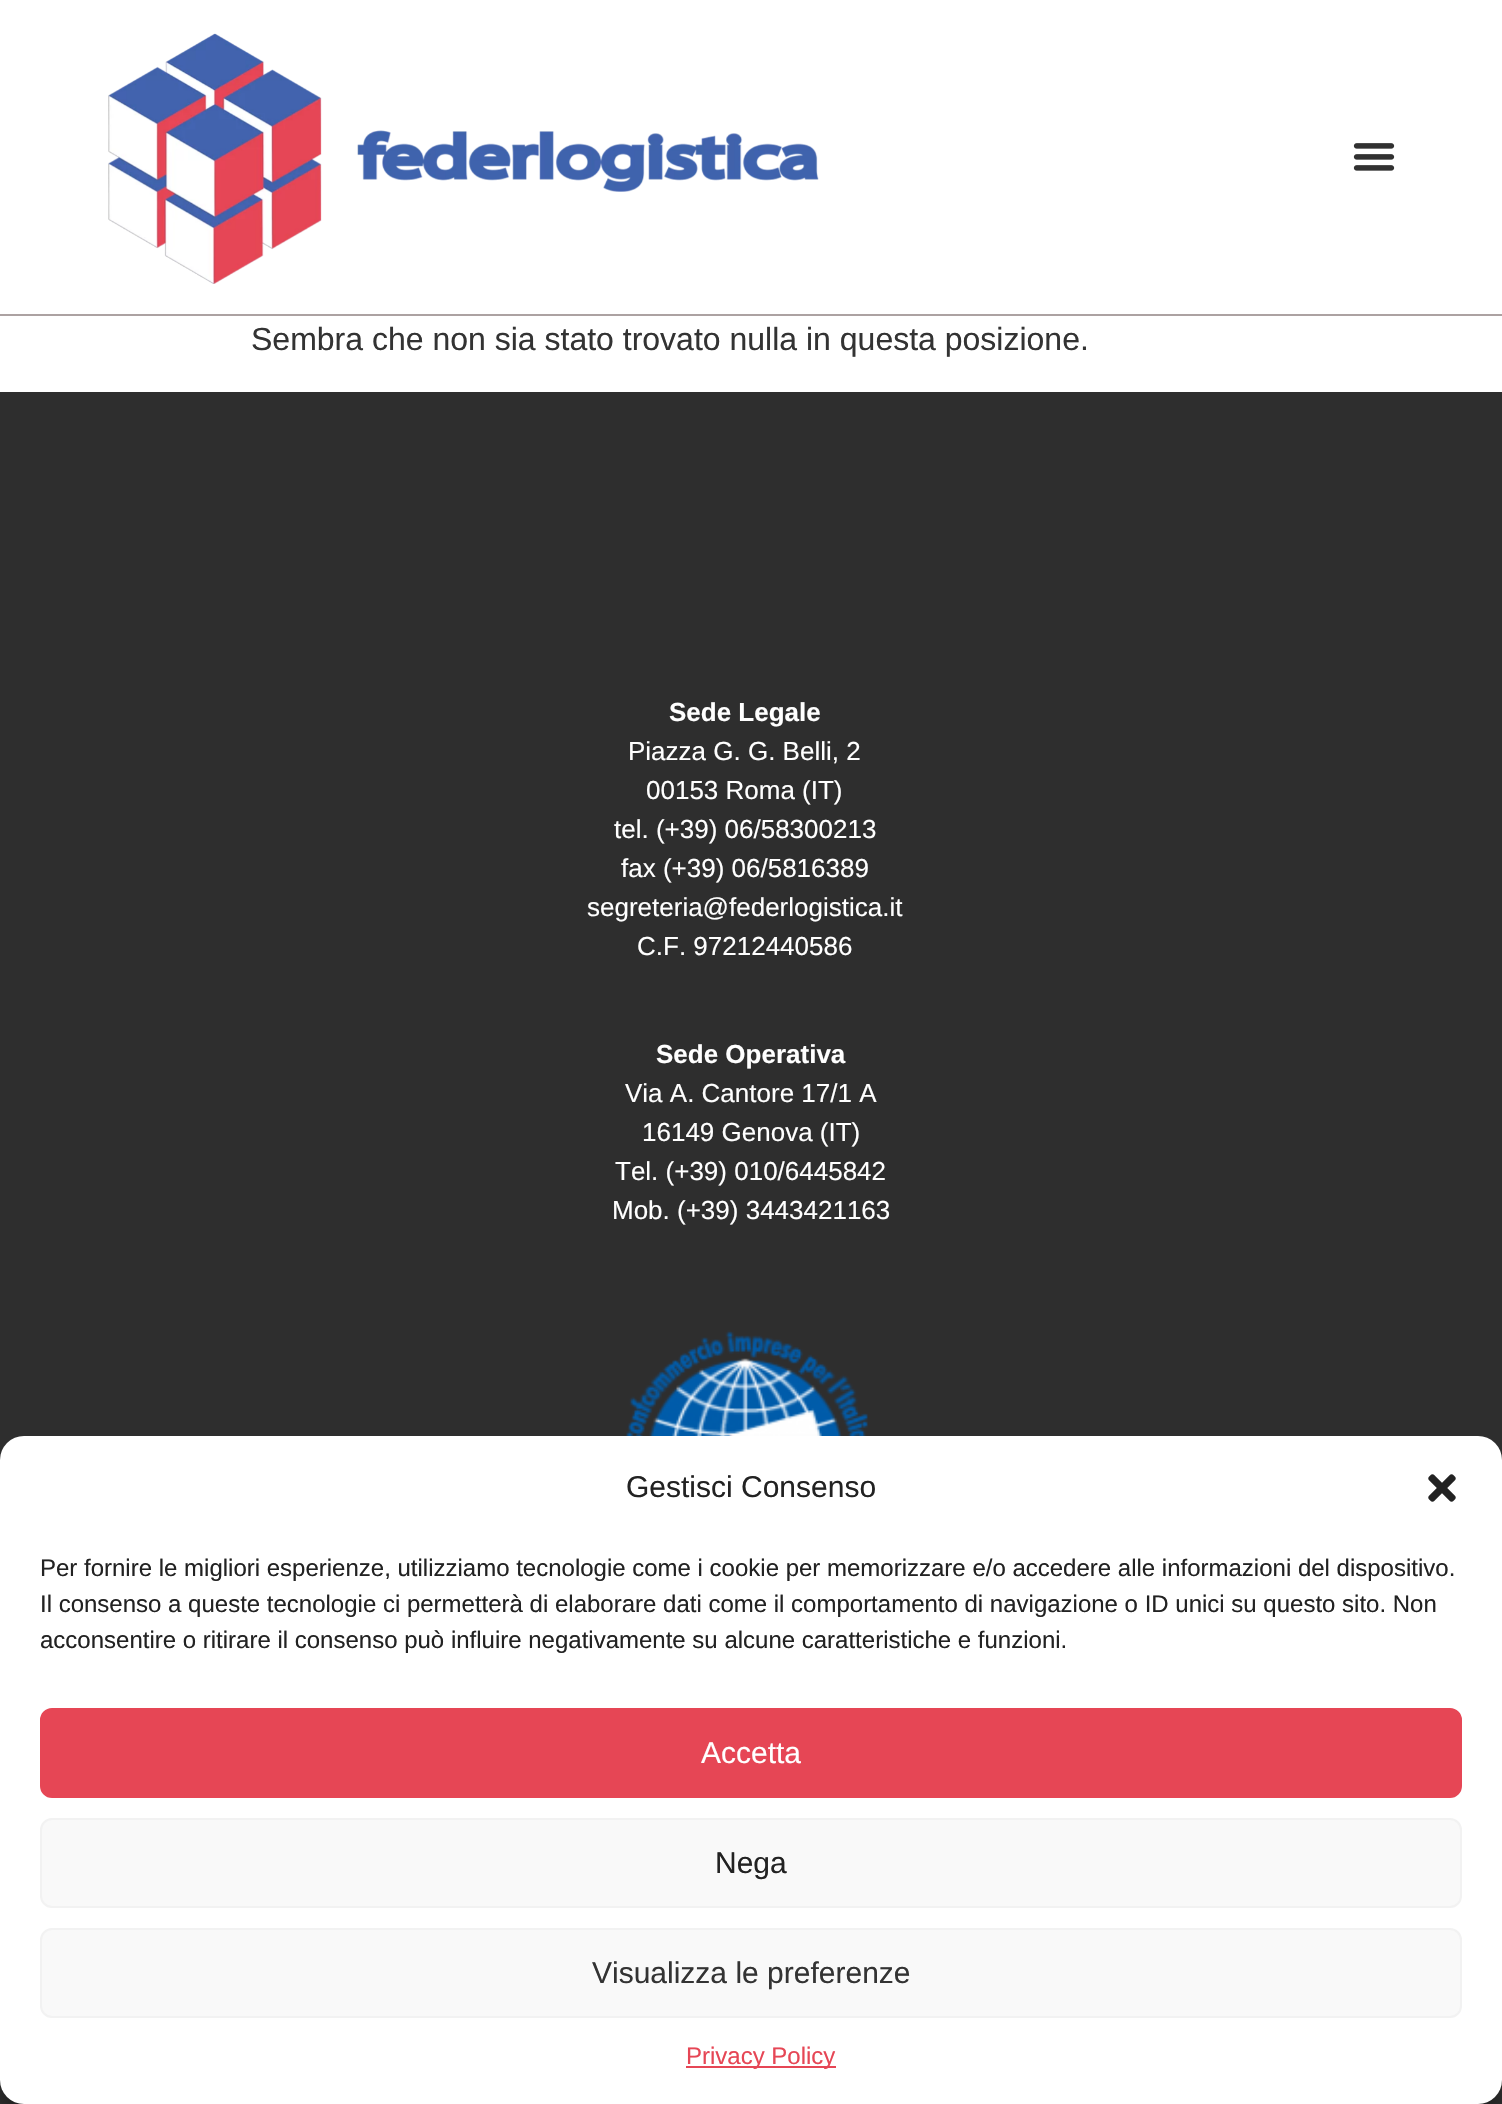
static SkFont makeFont(const char* family, int weight, float size, bool italic = false) {
  SkFontStyle style(weight, SkFontStyle::kNormal_Width,
    italic ? SkFontStyle::kItalic_Slant : SkFontStyle::kUpright_Slant);
  SkFont result(fontMgr->matchFamilyStyle(family, style), size);
  result.setSubpixel(true);
  return result;
}

static void text(SkCanvas* c, const char* s, float x, float y, const SkFont& font, SkColor color) {
  SkPaint ink(SkColor4f::FromColor(color));
  ink.setAntiAlias(true);
  c->drawString(s, x, y, font, ink);
}

static void box(SkCanvas* c, float l, float t, float r, float b, SkColor color) {
  SkPaint ink(SkColor4f::FromColor(color));
  ink.setAntiAlias(true);
  c->drawRect(SkRect::MakeLTRB(l, t, r, b), ink);
}

static void roundBox(SkCanvas* c, float l, float t, float r, float b, float radius, SkColor color) {
  SkPaint ink(SkColor4f::FromColor(color));
  ink.setAntiAlias(true);
  c->drawRoundRect(SkRect::MakeLTRB(l, t, r, b), radius, radius, ink);
}

static void picture(SkCanvas* c, const char* path, float l, float t, float r, float b) {
  auto image = SkImages::DeferredFromEncodedData(SkData::MakeFromFileName(path));
  c->drawImageRect(image, SkRect::MakeLTRB(l, t, r, b), SkSamplingOptions());
}

void draw(SkCanvas* c) {
  SkPaint paint;
  paint.setAntiAlias(true);
  c->clear(0xffffffff);
  box(c, 0, 314, 1502, 316, 0xffaca2a2);
  picture(c, "img_01.png", 108, 33, 819, 284);
  picture(c, "img_02.png", 1353, 143, 1395, 171);
  SkFont face1 = makeFont("Liberation Sans", 400, 32);
  text(c, "Sembra che non sia stato trovato nulla in questa posizione.", 251, 350, face1, 0xff333333);
  box(c, 0, 392, 1502, 2104, 0xff2e2e2e);
  SkFont face2 = makeFont("Liberation Sans", 700, 26);
  text(c, "Sede Legale", 669, 721, face2, 0xffffffff);
  SkFont face3 = makeFont("Liberation Sans", 400, 26);
  text(c, "Piazza G. G. Belli, 2", 628, 760, face3, 0xffffffff);
  text(c, "00153 Roma (IT)", 646, 799, face3, 0xffffffff);
  text(c, "tel. (+39) 06/58300213", 614, 838, face3, 0xffffffff);
  text(c, "fax (+39) 06/5816389", 621, 877, face3, 0xffffffff);
  text(c, "segreteria@federlogistica.it", 587, 916, face3, 0xffffffff);
  text(c, "C.F. 97212440586", 637, 955, face3, 0xffffffff);
  text(c, "Sede Operativa", 656, 1063, face2, 0xffffffff);
  text(c, "Via A. Cantore 17/1 A", 625, 1102, face3, 0xffffffff);
  text(c, "16149 Genova (IT)", 642, 1141, face3, 0xffffffff);
  text(c, "Tel. (+39) 010/6445842", 615, 1180, face3, 0xffffffff);
  text(c, "Mob. (+39) 3443421163", 612, 1219, face3, 0xffffffff);
  picture(c, "img_03.png", 626, 1330, 868, 1436);
  paint.setColor(0x3b000000);
  paint.setMaskFilter(SkMaskFilter::MakeBlur(kNormal_SkBlurStyle, 6));
  c->drawRoundRect(SkRect::MakeLTRB(0, 1448, 1502, 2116), 24, 24, paint);
  paint.setMaskFilter(nullptr);
  roundBox(c, 0, 1436, 1502, 2104, 24, 0xffffffff);
  SkFont face4 = makeFont("Liberation Sans", 400, 30);
  text(c, "Gestisci Consenso", 626, 1497, face4, 0xff222222);
  picture(c, "img_04.png", 1428, 1474, 1456, 1502);
  SkFont face5 = makeFont("Liberation Sans", 400, 24);
  text(c, "Per fornire le migliori esperienze, utilizziamo tecnologie come i cookie per memorizzare e/o accedere alle informazioni del dispositivo.", 40, 1576, face5, 0xff222222);
  text(c, "Il consenso a queste tecnologie ci permetterà di elaborare dati come il comportamento di navigazione o ID unici su questo sito. Non", 40, 1612, face5, 0xff222222);
  text(c, "acconsentire o ritirare il consenso può influire negativamente su alcune caratteristiche e funzioni.", 40, 1648, face5, 0xff222222);
  paint.setColor(0xffe64655);
  c->drawRoundRect(SkRect::MakeLTRB(41, 1709, 1461, 1797), 11, 11, paint);
  paint.setStyle(SkPaint::kStroke_Style);
  paint.setStrokeWidth(2);
  c->drawRoundRect(SkRect::MakeLTRB(41, 1709, 1461, 1797), 11, 11, paint);
  text(c, "Accetta", 701, 1763, face4, 0xffffffff);
  paint.setStyle(SkPaint::kFill_Style);
  paint.setColor(0xfff9f9f9);
  c->drawRoundRect(SkRect::MakeLTRB(41, 1819, 1461, 1907), 11, 11, paint);
  paint.setStyle(SkPaint::kStroke_Style);
  paint.setColor(0xfff2f2f2);
  c->drawRoundRect(SkRect::MakeLTRB(41, 1819, 1461, 1907), 11, 11, paint);
  text(c, "Nega", 715, 1873, face4, 0xff222222);
  paint.setStyle(SkPaint::kFill_Style);
  paint.setColor(0xfff9f9f9);
  c->drawRoundRect(SkRect::MakeLTRB(41, 1929, 1461, 2017), 11, 11, paint);
  paint.setStyle(SkPaint::kStroke_Style);
  paint.setColor(0xfff2f2f2);
  c->drawRoundRect(SkRect::MakeLTRB(41, 1929, 1461, 2017), 11, 11, paint);
  text(c, "Visualizza le preferenze", 592, 1983, face4, 0xff333333);
  box(c, 686, 2066, 836, 2068, 0xffe64655);
  text(c, "Privacy Policy", 686, 2064, face5, 0xffe64655);
}
